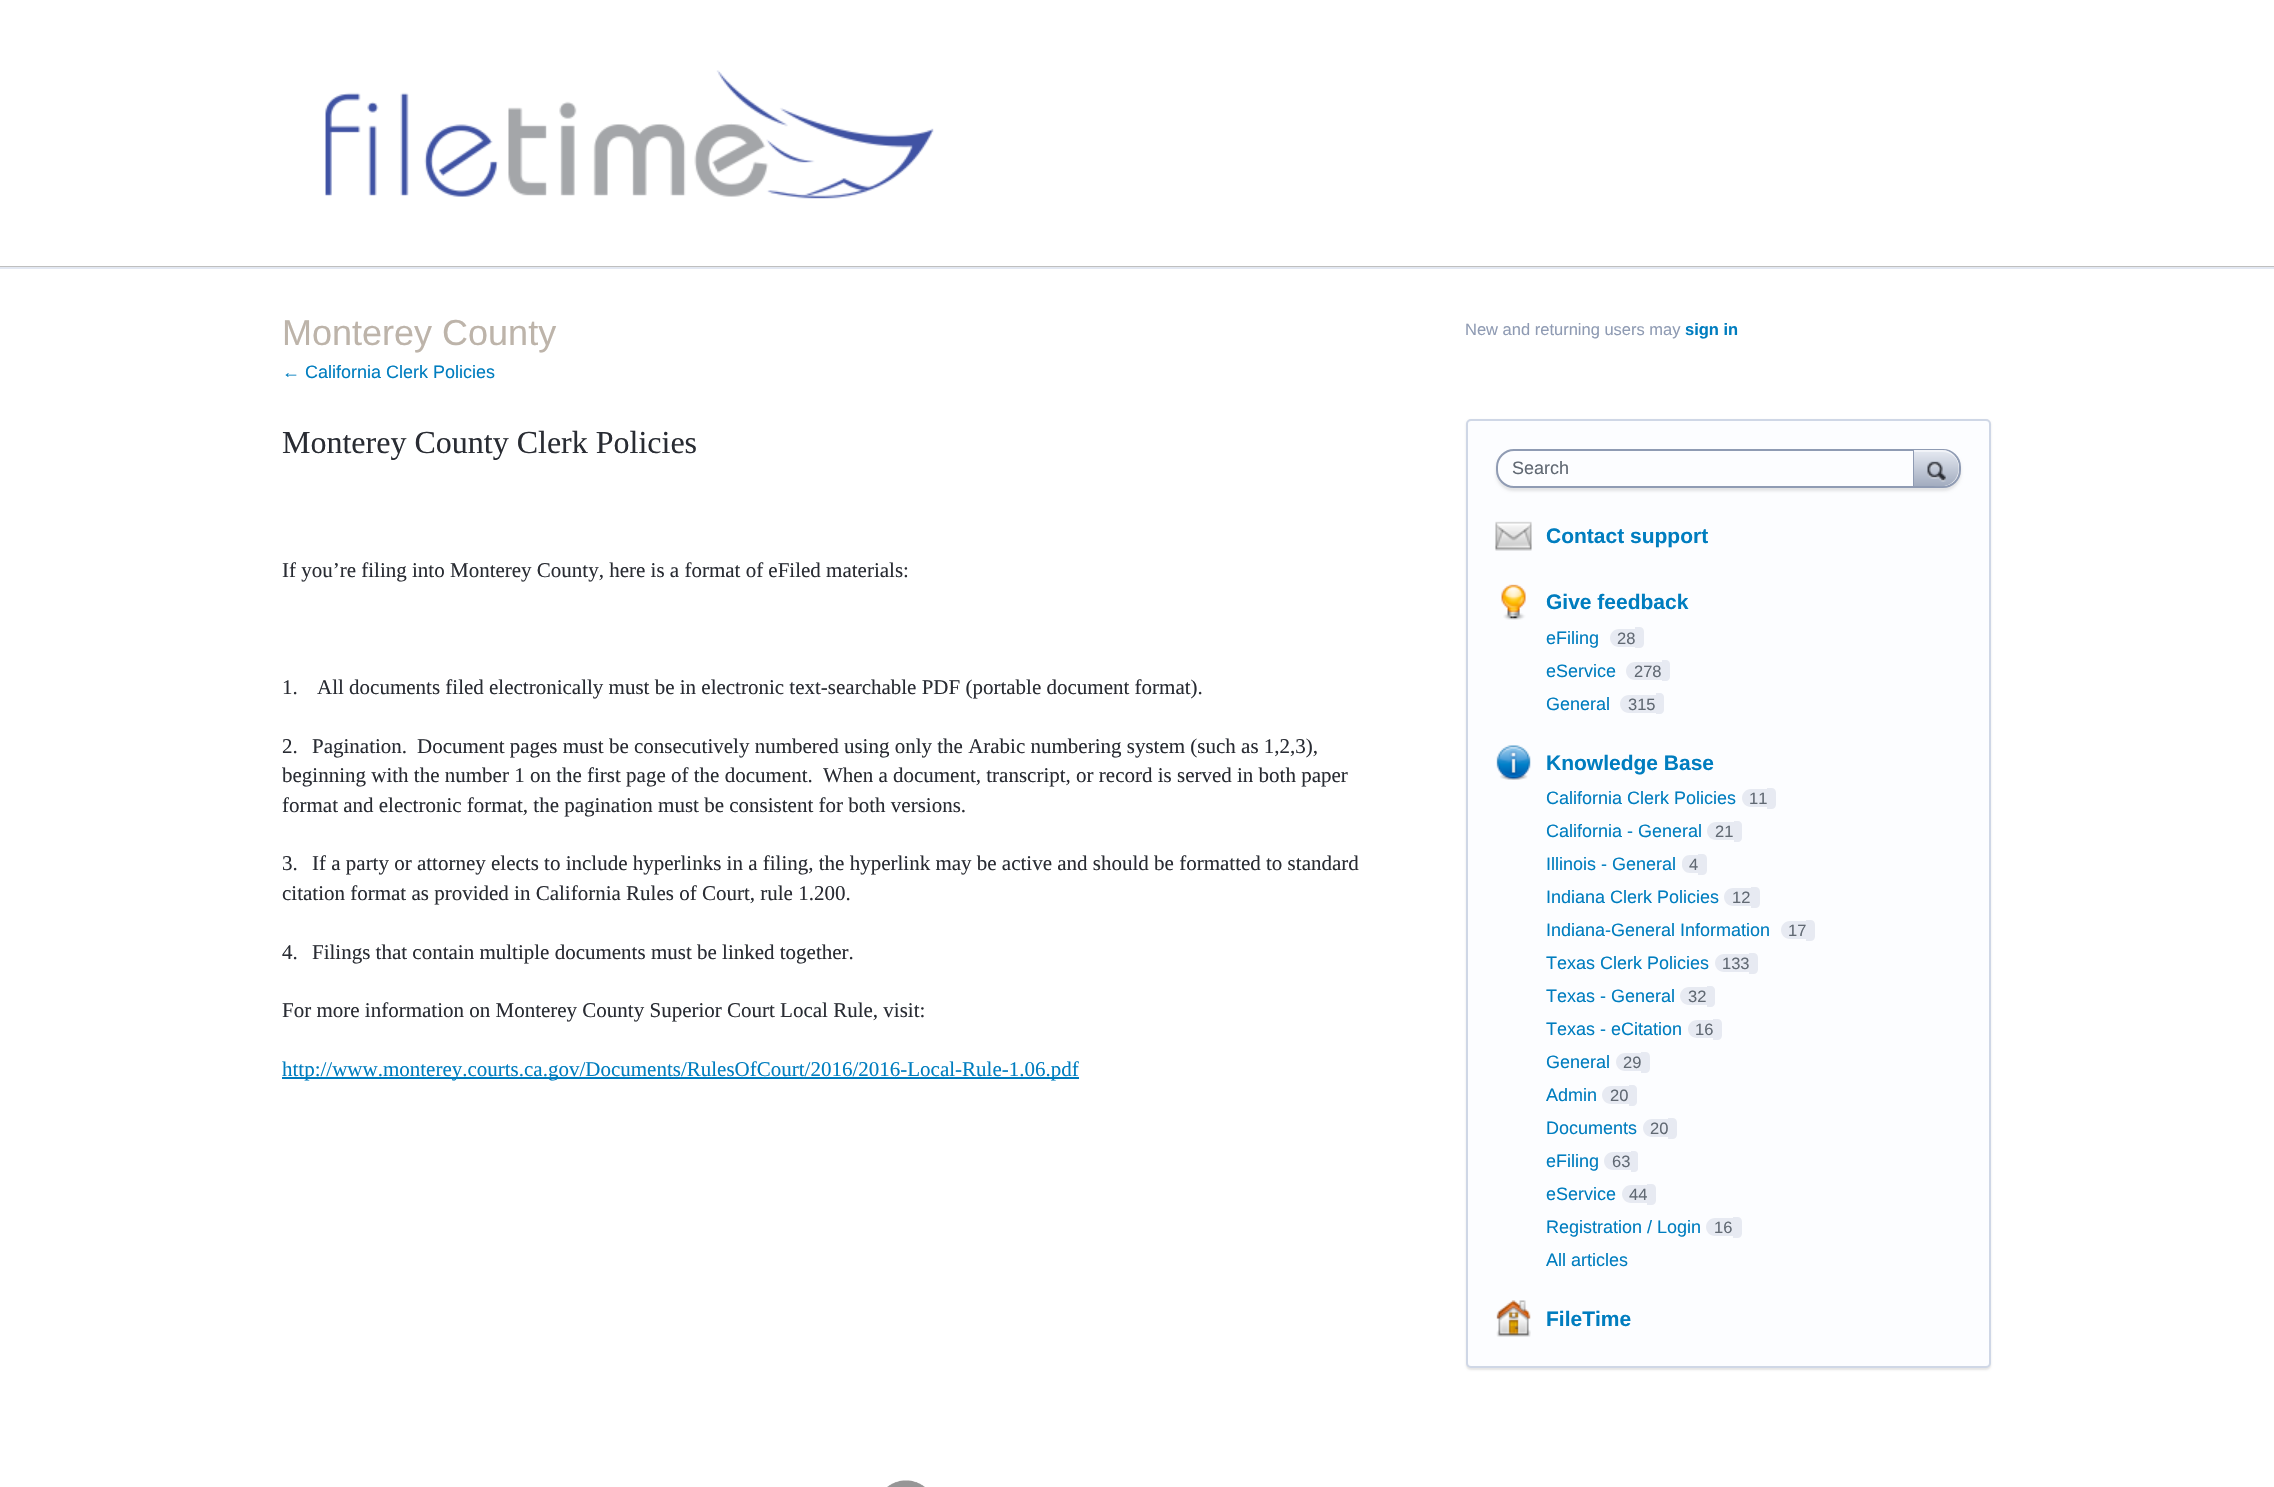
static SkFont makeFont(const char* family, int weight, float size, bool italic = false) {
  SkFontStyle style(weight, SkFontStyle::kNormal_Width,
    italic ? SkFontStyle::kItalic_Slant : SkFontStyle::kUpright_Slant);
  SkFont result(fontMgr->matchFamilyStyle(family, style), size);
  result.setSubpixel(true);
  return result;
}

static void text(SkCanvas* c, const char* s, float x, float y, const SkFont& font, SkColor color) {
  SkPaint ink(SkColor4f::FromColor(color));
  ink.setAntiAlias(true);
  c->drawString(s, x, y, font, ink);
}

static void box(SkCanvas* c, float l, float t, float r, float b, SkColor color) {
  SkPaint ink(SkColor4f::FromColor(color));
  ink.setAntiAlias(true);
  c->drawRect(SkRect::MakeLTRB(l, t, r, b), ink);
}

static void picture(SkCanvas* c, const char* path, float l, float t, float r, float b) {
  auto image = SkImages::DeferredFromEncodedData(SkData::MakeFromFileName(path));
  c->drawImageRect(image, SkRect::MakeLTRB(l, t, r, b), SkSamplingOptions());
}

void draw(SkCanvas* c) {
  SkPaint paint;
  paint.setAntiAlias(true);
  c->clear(0xffffffff);
  box(c, 0, 266, 2274, 267, 0xffbfbfbf);
  picture(c, "img_01.png", 325, 70, 934, 199);
  box(c, 0, 267, 2274, 269, 0xffe3e8f2);
  SkFont face1 = makeFont("Liberation Sans", 400, 36);
  text(c, "Monterey County", 282, 345, face1, 0xffbdb4aa);
  SkFont face2 = makeFont("Liberation Sans", 400, 18);
  text(c, "← California Clerk Policies", 282, 378, face2, 0xff007dbf);
  SkFont face3 = makeFont("Liberation Serif", 400, 32);
  text(c, "Monterey County Clerk Policies", 282, 453, face3, 0xff292c33);
  SkFont face4 = makeFont("Liberation Serif", 400, 21);
  text(c, "If you’re filing into Monterey County, here is a format of eFiled materials:", 282, 577, face4, 0xff292c33);
  text(c, "1.", 282, 694, face4, 0xff292c33);
  text(c, "All documents filed electronically must be in electronic text-searchable PDF (portable document format).", 317, 694, face4, 0xff292c33);
  text(c, "2.", 282, 753, face4, 0xff292c33);
  text(c, "Pagination.", 312, 753, face4, 0xff292c33);
  text(c, "Document pages must be consecutively numbered using only the Arabic numbering system (such as 1,2,3),", 417, 753, face4, 0xff292c33);
  text(c, "beginning with the number 1 on the first page of the document.", 282, 782, face4, 0xff292c33);
  text(c, "When a document, transcript, or record is served in both paper", 823, 782, face4, 0xff292c33);
  text(c, "format and electronic format, the pagination must be consistent for both versions.", 282, 812, face4, 0xff292c33);
  text(c, "3.", 282, 870, face4, 0xff292c33);
  text(c, "If a party or attorney elects to include hyperlinks in a filing, the hyperlink may be active and should be formatted to standard", 312, 870, face4, 0xff292c33);
  text(c, "citation format as provided in California Rules of Court, rule 1.200.", 282, 900, face4, 0xff292c33);
  text(c, "4.", 282, 959, face4, 0xff292c33);
  text(c, "Filings that contain multiple documents must be linked together.", 312, 959, face4, 0xff292c33);
  text(c, "For more information on Monterey County Superior Court Local Rule, visit:", 282, 1017, face4, 0xff292c33);
  box(c, 282, 1077, 1079, 1079, 0xff007dbf);
  text(c, "http://www.monterey.courts.ca.gov/Documents/RulesOfCourt/2016/2016-Local-Rule-1.06.pdf", 282, 1076, face4, 0xff007dbf);
  SkFont face5 = makeFont("Liberation Sans", 400, 16.5f);
  text(c, "New and returning users may", 1465, 335, face5, 0xff8f9bb3);
  SkFont face6 = makeFont("Liberation Sans", 700, 16.5f);
  text(c, "sign in", 1685, 335, face6, 0xff007dbf);
  paint.setColor(0x1a000000);
  paint.setMaskFilter(SkMaskFilter::MakeBlur(kNormal_SkBlurStyle, 1));
  c->drawRoundRect(SkRect::MakeLTRB(1466, 420, 1991, 1370), 5, 5, paint);
  paint.setMaskFilter(nullptr);
  paint.setColor(0xfffcfdff);
  c->drawRoundRect(SkRect::MakeLTRB(1467, 420, 1990, 1367), 4, 4, paint);
  paint.setStyle(SkPaint::kStroke_Style);
  paint.setStrokeWidth(2);
  paint.setColor(0xffcfd7e6);
  c->drawRoundRect(SkRect::MakeLTRB(1467, 420, 1990, 1367), 4, 4, paint);
  paint.setStyle(SkPaint::kFill_Style);
  paint.setColor(0x1a000000);
  paint.setMaskFilter(SkMaskFilter::MakeBlur(kNormal_SkBlurStyle, 1.5f));
  c->drawRoundRect(SkRect::MakeLTRB(1496, 452, 1961, 491), 18, 18, paint);
  paint.setMaskFilter(nullptr);
  paint.setColor(0xfffcfdff);
  c->drawRoundRect(SkRect::MakeLTRB(1497, 450, 1960, 487), 17, 17, paint);
  paint.setStyle(SkPaint::kStroke_Style);
  paint.setColor(0xff8f9bb3);
  c->drawRoundRect(SkRect::MakeLTRB(1497, 450, 1960, 487), 17, 17, paint);
  text(c, "Search", 1512, 474, face2, 0xff616973);
  paint.setStyle(SkPaint::kFill_Style);
  {
    const SkColor colors[] = {0xffe6eaf2, 0xffa2acbf};
    const float stops[] = {0, 1};
    const SkPoint ends[] = {{1914, 450}, {1914, 486}};
    paint.setShader(SkGradientShader::MakeLinear(ends, colors, stops, 2, SkTileMode::kClamp));
    paint.setAlpha(255);
  }
  c->drawPath(SkPathBuilder().moveTo(1914, 450).lineTo(1914, 486).lineTo(1933, 486).cubicTo(1938, 486, 1943, 487, 1948, 485).cubicTo(1965, 478, 1961, 450, 1942, 450).close().detach(), paint);
  paint.setShader(nullptr);
  paint.setColor(0x80ffffff);
  c->drawPath(SkPathBuilder().moveTo(1914, 450).lineTo(1914, 452).lineTo(1942, 452).cubicTo(1952, 452, 1959, 459, 1959, 468).cubicTo(1959, 458, 1952, 450, 1942, 450).close().detach(), paint);
  paint.setColor(0xff8f9bb3);
  c->drawPath(SkPathBuilder().moveTo(1953, 482).cubicTo(1957.5f, 478, 1959, 473.5f, 1959, 468).cubicTo(1959, 473.5f, 1957, 478.5f, 1953, 482).close().detach(), paint);
  box(c, 1913, 450, 1914, 486, 0xff8f9bb3);
  picture(c, "img_02.png", 1927, 461, 1946, 482);
  picture(c, "img_03.png", 1495, 521, 1532, 551);
  SkFont face7 = makeFont("Liberation Sans", 700, 21);
  text(c, "Contact support", 1546, 543, face7, 0xff007dbf);
  picture(c, "img_04.png", 1501, 584, 1526, 620);
  text(c, "Give feedback", 1546, 609, face7, 0xff007dbf);
  text(c, "eFiling", 1546, 644, face2, 0xff007dbf);
  paint.setColor(0xffe7eaf2);
  c->drawPath(SkPathBuilder().moveTo(1619, 629).lineTo(1635, 629).lineTo(1635, 647).lineTo(1619, 647).cubicTo(1614, 647, 1610, 643, 1610, 638).cubicTo(1610, 633, 1614, 629, 1619, 629).close().detach(), paint);
  text(c, "28", 1617, 644, face5, 0xff616973);
  c->drawPath(SkPathBuilder().moveTo(1635, 627).lineTo(1639.5f, 627).cubicTo(1642, 627, 1644, 629, 1644, 631.5f).lineTo(1644, 643.5f).cubicTo(1644, 646, 1642, 648, 1639.5f, 648).lineTo(1635, 648).close().detach(), paint);
  text(c, "eService", 1546, 677, face2, 0xff007dbf);
  c->drawPath(SkPathBuilder().moveTo(1635, 662).lineTo(1662, 662).lineTo(1662, 680).lineTo(1635, 680).cubicTo(1630, 680, 1626, 676, 1626, 671).cubicTo(1626, 666, 1630, 662, 1635, 662).close().detach(), paint);
  text(c, "278", 1634, 677, face5, 0xff616973);
  c->drawPath(SkPathBuilder().moveTo(1662, 660).lineTo(1666, 660).cubicTo(1668, 660, 1670, 662, 1670, 664).lineTo(1670, 677).cubicTo(1670, 679, 1668, 681, 1666, 681).lineTo(1662, 681).close().detach(), paint);
  text(c, "General", 1546, 710, face2, 0xff007dbf);
  c->drawPath(SkPathBuilder().moveTo(1629, 695).lineTo(1656, 695).lineTo(1656, 713).lineTo(1629, 713).cubicTo(1624, 713, 1620, 709, 1620, 704).cubicTo(1620, 699, 1624, 695, 1629, 695).close().detach(), paint);
  text(c, "315", 1628, 710, face5, 0xff616973);
  c->drawPath(SkPathBuilder().moveTo(1656, 693).lineTo(1660, 693).cubicTo(1662, 693, 1664, 695, 1664, 697).lineTo(1664, 710).cubicTo(1664, 712, 1662, 714, 1660, 714).lineTo(1656, 714).close().detach(), paint);
  picture(c, "img_05.png", 1496, 745, 1531, 780);
  text(c, "Knowledge Base", 1546, 770, face7, 0xff007dbf);
  text(c, "California Clerk Policies", 1546, 804, face2, 0xff007dbf);
  c->drawPath(SkPathBuilder().moveTo(1751, 789).lineTo(1767, 789).lineTo(1767, 807).lineTo(1751, 807).cubicTo(1746, 807, 1742, 803, 1742, 798).cubicTo(1742, 793, 1746, 789, 1751, 789).close().detach(), paint);
  text(c, "11", 1749, 804, face5, 0xff616973);
  c->drawPath(SkPathBuilder().moveTo(1767, 788).lineTo(1771.5f, 788).cubicTo(1774, 788, 1776, 790, 1776, 792.5f).lineTo(1776, 804.5f).cubicTo(1776, 807, 1774, 809, 1771.5f, 809).lineTo(1767, 809).close().detach(), paint);
  text(c, "California - General", 1546, 837, face2, 0xff007dbf);
  c->drawPath(SkPathBuilder().moveTo(1716, 822).lineTo(1734, 822).lineTo(1734, 840).lineTo(1716, 840).cubicTo(1711, 840, 1707, 836, 1707, 831).cubicTo(1707, 826, 1711, 822, 1716, 822).close().detach(), paint);
  text(c, "21", 1715, 837, face5, 0xff616973);
  c->drawPath(SkPathBuilder().moveTo(1734, 821).lineTo(1738, 821).cubicTo(1740, 821, 1742, 823, 1742, 825).lineTo(1742, 838).cubicTo(1742, 840, 1740, 842, 1738, 842).lineTo(1734, 842).close().detach(), paint);
  text(c, "Illinois - General", 1546, 870, face2, 0xff007dbf);
  c->drawPath(SkPathBuilder().moveTo(1690, 855).lineTo(1698, 855).lineTo(1698, 873).lineTo(1690, 873).cubicTo(1685.5f, 873, 1682, 869.5f, 1682, 865).lineTo(1682, 863).cubicTo(1682, 858.5f, 1685.5f, 855, 1690, 855).close().detach(), paint);
  text(c, "4", 1689, 870, face5, 0xff616973);
  c->drawPath(SkPathBuilder().moveTo(1698, 854).lineTo(1702.5f, 854).cubicTo(1705, 854, 1707, 856, 1707, 858.5f).lineTo(1707, 870.5f).cubicTo(1707, 873, 1705, 875, 1702.5f, 875).lineTo(1698, 875).close().detach(), paint);
  text(c, "Indiana Clerk Policies", 1546, 903, face2, 0xff007dbf);
  c->drawPath(SkPathBuilder().moveTo(1733, 888).lineTo(1751, 888).lineTo(1751, 906).lineTo(1733, 906).cubicTo(1728, 906, 1724, 902, 1724, 897).cubicTo(1724, 892, 1728, 888, 1733, 888).close().detach(), paint);
  text(c, "12", 1732, 903, face5, 0xff616973);
  c->drawPath(SkPathBuilder().moveTo(1751, 887).lineTo(1755.5f, 887).cubicTo(1758, 887, 1760, 889, 1760, 891.5f).lineTo(1760, 903.5f).cubicTo(1760, 906, 1758, 908, 1755.5f, 908).lineTo(1751, 908).close().detach(), paint);
  text(c, "Indiana-General Information", 1546, 936, face2, 0xff007dbf);
  c->drawPath(SkPathBuilder().moveTo(1790, 921).lineTo(1806, 921).lineTo(1806, 939).lineTo(1790, 939).cubicTo(1785, 939, 1781, 935, 1781, 930).cubicTo(1781, 925, 1785, 921, 1790, 921).close().detach(), paint);
  text(c, "17", 1788, 936, face5, 0xff616973);
  c->drawPath(SkPathBuilder().moveTo(1806, 920).lineTo(1810.5f, 920).cubicTo(1813, 920, 1815, 922, 1815, 924.5f).lineTo(1815, 936.5f).cubicTo(1815, 939, 1813, 941, 1810.5f, 941).lineTo(1806, 941).close().detach(), paint);
  text(c, "Texas Clerk Policies", 1546, 969, face2, 0xff007dbf);
  c->drawPath(SkPathBuilder().moveTo(1724, 954).lineTo(1749, 954).lineTo(1749, 972).lineTo(1724, 972).cubicTo(1719, 972, 1715, 968, 1715, 963).cubicTo(1715, 958, 1719, 954, 1724, 954).close().detach(), paint);
  text(c, "133", 1722, 969, face5, 0xff616973);
  c->drawPath(SkPathBuilder().moveTo(1749, 953).lineTo(1753.5f, 953).cubicTo(1756, 953, 1758, 955, 1758, 957.5f).lineTo(1758, 969.5f).cubicTo(1758, 972, 1756, 974, 1753.5f, 974).lineTo(1749, 974).close().detach(), paint);
  text(c, "Texas - General", 1546, 1002, face2, 0xff007dbf);
  c->drawPath(SkPathBuilder().moveTo(1689, 987).lineTo(1707, 987).lineTo(1707, 1005).lineTo(1689, 1005).cubicTo(1684, 1005, 1680, 1001, 1680, 996).cubicTo(1680, 991, 1684, 987, 1689, 987).close().detach(), paint);
  text(c, "32", 1688, 1002, face5, 0xff616973);
  c->drawPath(SkPathBuilder().moveTo(1707, 986).lineTo(1711, 986).cubicTo(1713, 986, 1715, 988, 1715, 990).lineTo(1715, 1003).cubicTo(1715, 1005, 1713, 1007, 1711, 1007).lineTo(1707, 1007).close().detach(), paint);
  text(c, "Texas - eCitation", 1546, 1035, face2, 0xff007dbf);
  c->drawPath(SkPathBuilder().moveTo(1697, 1020).lineTo(1713, 1020).lineTo(1713, 1038).lineTo(1697, 1038).cubicTo(1692, 1038, 1688, 1034, 1688, 1029).cubicTo(1688, 1024, 1692, 1020, 1697, 1020).close().detach(), paint);
  text(c, "16", 1695, 1035, face5, 0xff616973);
  c->drawPath(SkPathBuilder().moveTo(1713, 1019).lineTo(1717.5f, 1019).cubicTo(1720, 1019, 1722, 1021, 1722, 1023.5f).lineTo(1722, 1035.5f).cubicTo(1722, 1038, 1720, 1040, 1717.5f, 1040).lineTo(1713, 1040).close().detach(), paint);
  text(c, "General", 1546, 1068, face2, 0xff007dbf);
  c->drawPath(SkPathBuilder().moveTo(1625, 1053).lineTo(1641, 1053).lineTo(1641, 1071).lineTo(1625, 1071).cubicTo(1620, 1071, 1616, 1067, 1616, 1062).cubicTo(1616, 1057, 1620, 1053, 1625, 1053).close().detach(), paint);
  text(c, "29", 1623, 1068, face5, 0xff616973);
  c->drawPath(SkPathBuilder().moveTo(1641, 1052).lineTo(1645.5f, 1052).cubicTo(1648, 1052, 1650, 1054, 1650, 1056.5f).lineTo(1650, 1068.5f).cubicTo(1650, 1071, 1648, 1073, 1645.5f, 1073).lineTo(1641, 1073).close().detach(), paint);
  text(c, "Admin", 1546, 1101, face2, 0xff007dbf);
  c->drawPath(SkPathBuilder().moveTo(1611, 1086).lineTo(1629, 1086).lineTo(1629, 1104).lineTo(1611, 1104).cubicTo(1606, 1104, 1602, 1100, 1602, 1095).cubicTo(1602, 1090, 1606, 1086, 1611, 1086).close().detach(), paint);
  text(c, "20", 1610, 1101, face5, 0xff616973);
  c->drawPath(SkPathBuilder().moveTo(1629, 1085).lineTo(1633, 1085).cubicTo(1635, 1085, 1637, 1087, 1637, 1089).lineTo(1637, 1102).cubicTo(1637, 1104, 1635, 1106, 1633, 1106).lineTo(1629, 1106).close().detach(), paint);
  text(c, "Documents", 1546, 1134, face2, 0xff007dbf);
  c->drawPath(SkPathBuilder().moveTo(1652, 1119).lineTo(1668, 1119).lineTo(1668, 1137).lineTo(1652, 1137).cubicTo(1647, 1137, 1643, 1133, 1643, 1128).cubicTo(1643, 1123, 1647, 1119, 1652, 1119).close().detach(), paint);
  text(c, "20", 1650, 1134, face5, 0xff616973);
  c->drawPath(SkPathBuilder().moveTo(1668, 1118).lineTo(1672.5f, 1118).cubicTo(1675, 1118, 1677, 1120, 1677, 1122.5f).lineTo(1677, 1134.5f).cubicTo(1677, 1137, 1675, 1139, 1672.5f, 1139).lineTo(1668, 1139).close().detach(), paint);
  text(c, "eFiling", 1546, 1167, face2, 0xff007dbf);
  c->drawPath(SkPathBuilder().moveTo(1613, 1152).lineTo(1631, 1152).lineTo(1631, 1170).lineTo(1613, 1170).cubicTo(1608, 1170, 1604, 1166, 1604, 1161).cubicTo(1604, 1156, 1608, 1152, 1613, 1152).close().detach(), paint);
  text(c, "63", 1612, 1167, face5, 0xff616973);
  c->drawPath(SkPathBuilder().moveTo(1631, 1151).lineTo(1634.5f, 1151).cubicTo(1636.5f, 1151, 1638, 1152.5f, 1638, 1154.5f).lineTo(1638, 1168.5f).cubicTo(1638, 1170.5f, 1636.5f, 1172, 1634.5f, 1172).lineTo(1631, 1172).close().detach(), paint);
  text(c, "eService", 1546, 1200, face2, 0xff007dbf);
  c->drawPath(SkPathBuilder().moveTo(1631, 1185).lineTo(1647, 1185).lineTo(1647, 1203).lineTo(1631, 1203).cubicTo(1626, 1203, 1622, 1199, 1622, 1194).cubicTo(1622, 1189, 1626, 1185, 1631, 1185).close().detach(), paint);
  text(c, "44", 1629, 1200, face5, 0xff616973);
  c->drawPath(SkPathBuilder().moveTo(1647, 1184).lineTo(1651.5f, 1184).cubicTo(1654, 1184, 1656, 1186, 1656, 1188.5f).lineTo(1656, 1200.5f).cubicTo(1656, 1203, 1654, 1205, 1651.5f, 1205).lineTo(1647, 1205).close().detach(), paint);
  text(c, "Registration / Login", 1546, 1233, face2, 0xff007dbf);
  c->drawPath(SkPathBuilder().moveTo(1715, 1218).lineTo(1733, 1218).lineTo(1733, 1236).lineTo(1715, 1236).cubicTo(1710, 1236, 1706, 1232, 1706, 1227).cubicTo(1706, 1222, 1710, 1218, 1715, 1218).close().detach(), paint);
  text(c, "16", 1714, 1233, face5, 0xff616973);
  c->drawPath(SkPathBuilder().moveTo(1733, 1217).lineTo(1737.5f, 1217).cubicTo(1740, 1217, 1742, 1219, 1742, 1221.5f).lineTo(1742, 1233.5f).cubicTo(1742, 1236, 1740, 1238, 1737.5f, 1238).lineTo(1733, 1238).close().detach(), paint);
  text(c, "All articles", 1546, 1266, face2, 0xff007dbf);
  picture(c, "img_06.png", 1496, 1300, 1531, 1337);
  text(c, "FileTime", 1546, 1326, face7, 0xff007dbf);
  picture(c, "img_07.png", 887, 1480, 925, 1487);
}
